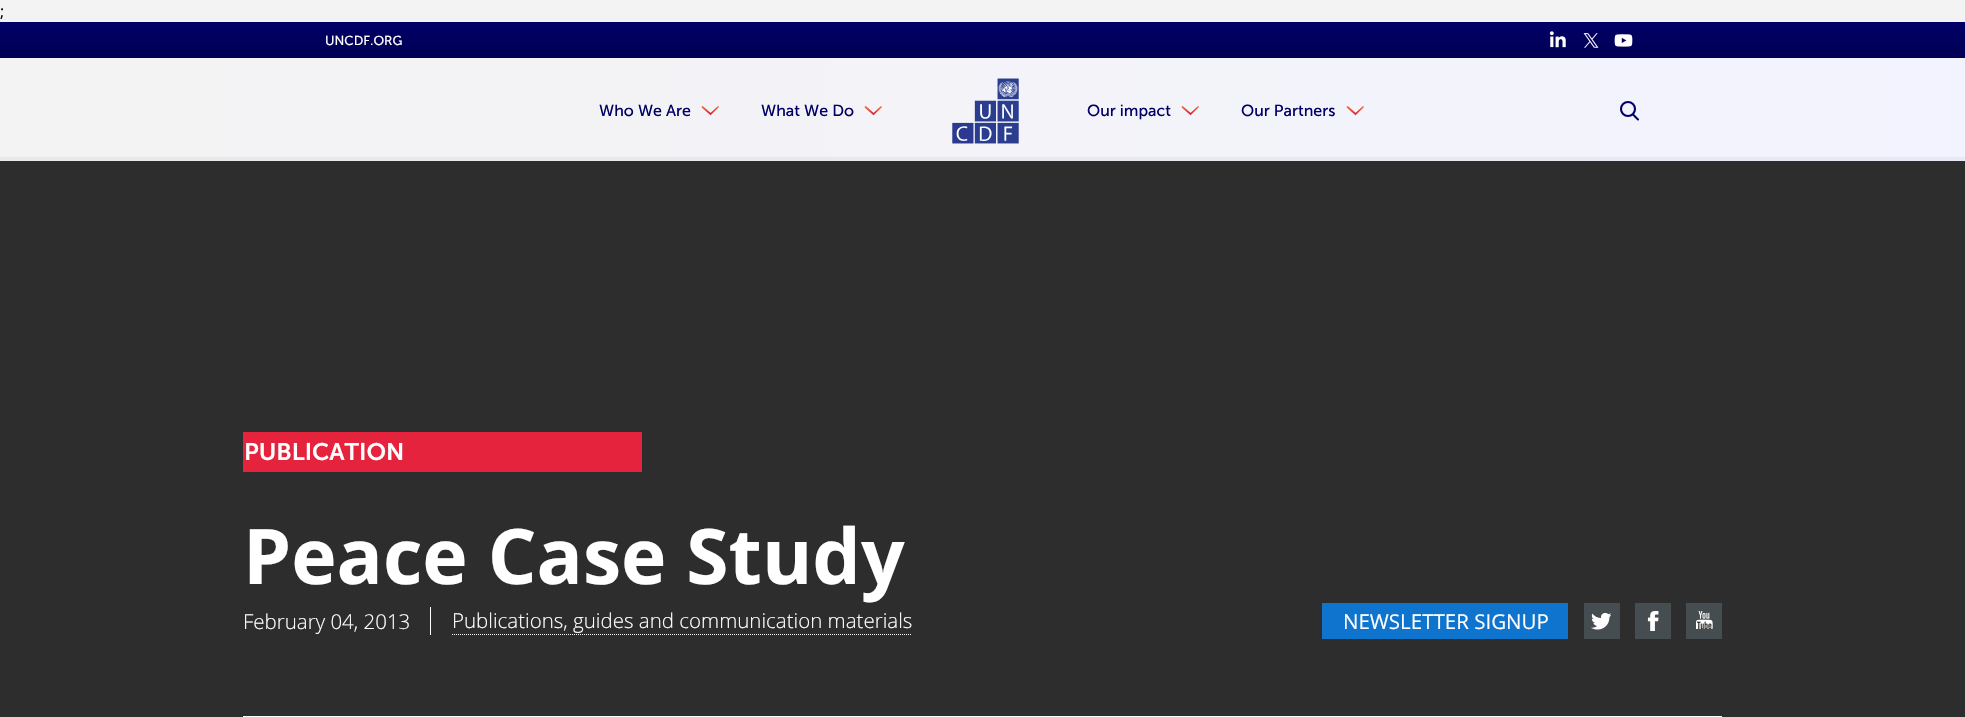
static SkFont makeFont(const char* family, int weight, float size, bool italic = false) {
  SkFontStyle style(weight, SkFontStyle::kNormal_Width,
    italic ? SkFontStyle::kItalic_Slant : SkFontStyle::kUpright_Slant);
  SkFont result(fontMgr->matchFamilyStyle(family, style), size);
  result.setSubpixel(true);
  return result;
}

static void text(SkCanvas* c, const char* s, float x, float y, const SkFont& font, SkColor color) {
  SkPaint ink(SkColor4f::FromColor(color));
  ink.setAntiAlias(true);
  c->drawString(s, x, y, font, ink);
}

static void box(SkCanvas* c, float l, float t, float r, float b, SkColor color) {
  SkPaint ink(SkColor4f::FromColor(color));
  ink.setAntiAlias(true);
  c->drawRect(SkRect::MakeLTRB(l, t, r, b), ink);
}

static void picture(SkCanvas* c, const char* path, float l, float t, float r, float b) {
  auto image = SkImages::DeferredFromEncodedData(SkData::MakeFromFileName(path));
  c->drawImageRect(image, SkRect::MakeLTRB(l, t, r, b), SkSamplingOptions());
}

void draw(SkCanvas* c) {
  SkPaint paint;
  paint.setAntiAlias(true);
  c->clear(0xfff3f3f3);
  SkFont face1 = makeFont("Open Sans", 400, 16);
  text(c, ";", 0, 17, face1, 0xff000000);
  {
    const SkColor colors[] = {0xff010067, 0xff010053};
    const float stops[] = {0, 1};
    const SkPoint ends[] = {{983, 22}, {983, 58}};
    paint.setShader(SkGradientShader::MakeLinear(ends, colors, stops, 2, SkTileMode::kClamp));
    paint.setAlpha(255);
  }
  c->drawRect(SkRect::MakeLTRB(0, 22, 1965, 58), paint);
  SkFont face2 = makeFont("Museo Sans", 400, 13);
  text(c, "UNCDF.ORG", 325, 45, face2, 0xffffffff);
  picture(c, "img_01.png", 1549, 31, 1566, 48);
  picture(c, "img_02.png", 1583, 33, 1599, 48);
  picture(c, "img_03.png", 1614, 34, 1633, 47);
  box(c, 0, 157, 1965, 717, 0xff2d2d2d);
  {
    const SkColor colors[] = {0xf2f2f2f2, 0xf2f2f2ff};
    const float stops[] = {0, 1};
    const SkPoint ends[] = {{0, 110}, {1965, 109}};
    paint.setShader(SkGradientShader::MakeLinear(ends, colors, stops, 2, SkTileMode::kClamp));
    paint.setAlpha(255);
  }
  c->drawRect(SkRect::MakeLTRB(0, 58, 1965, 161), paint);
  paint.setStyle(SkPaint::kStroke_Style);
  paint.setStrokeWidth(1.7f);
  paint.setStrokeCap(SkPaint::kRound_Cap);
  {
    const SkColor colors[] = {0xfff56a37, 0xffd3263a};
    const float stops[] = {0, 1};
    const SkPoint ends[] = {{710, 107}, {710, 114}};
    paint.setShader(SkGradientShader::MakeLinear(ends, colors, stops, 2, SkTileMode::kClamp));
    paint.setAlpha(255);
  }
  c->drawPath(SkPathBuilder().moveTo(718, 107).lineTo(710.5f, 114).lineTo(702.5f, 107).detach(), paint);
  SkFont face3 = makeFont("Museo Sans", 400, 16);
  text(c, "Who We Are", 599, 116, face3, 0xff010067);
  {
    const SkColor colors[] = {0xfff56a37, 0xffd3263a};
    const float stops[] = {0, 1};
    const SkPoint ends[] = {{873, 107}, {873, 114}};
    paint.setShader(SkGradientShader::MakeLinear(ends, colors, stops, 2, SkTileMode::kClamp));
    paint.setAlpha(255);
  }
  c->drawPath(SkPathBuilder().moveTo(881, 107).lineTo(873.5f, 114).lineTo(865.5f, 107).detach(), paint);
  text(c, "What We Do", 761, 116, face3, 0xff010067);
  picture(c, "img_04.png", 952, 78, 1019, 144);
  {
    const SkColor colors[] = {0xfff56a37, 0xffd3263a};
    const float stops[] = {0, 1};
    const SkPoint ends[] = {{1190, 107}, {1190, 114}};
    paint.setShader(SkGradientShader::MakeLinear(ends, colors, stops, 2, SkTileMode::kClamp));
    paint.setAlpha(255);
  }
  c->drawPath(SkPathBuilder().moveTo(1198, 107).lineTo(1190.5f, 114).lineTo(1182.5f, 107).detach(), paint);
  text(c, "Our impact", 1087, 116, face3, 0xff010067);
  {
    const SkColor colors[] = {0xfff56a37, 0xffd3263a};
    const float stops[] = {0, 1};
    const SkPoint ends[] = {{1355, 107}, {1355, 114}};
    paint.setShader(SkGradientShader::MakeLinear(ends, colors, stops, 2, SkTileMode::kClamp));
    paint.setAlpha(255);
  }
  c->drawPath(SkPathBuilder().moveTo(1363, 107).lineTo(1355.5f, 114).lineTo(1347.5f, 107).detach(), paint);
  text(c, "Our Partners", 1241, 116, face3, 0xff010067);
  paint.setStrokeWidth(2.1f);
  paint.setStrokeCap(SkPaint::kButt_Cap);
  paint.setShader(nullptr);
  paint.setColor(0xff010067);
  c->drawCircle(1628, 109, 7, paint);
  paint.setStrokeCap(SkPaint::kRound_Cap);
  c->drawPath(SkPathBuilder().moveTo(1633, 114.5f).lineTo(1638, 119.5f).detach(), paint);
  box(c, 243, 432, 642, 472, 0xffe5233d);
  SkFont face4 = makeFont("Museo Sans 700", 600, 24);
  text(c, "PUBLICATION", 244, 460, face4, 0xffffffff);
  SkFont face5 = makeFont("Open Sans", 700, 76.75f);
  text(c, "Peace Case Study", 243, 584, face5, 0xffffffff);
  SkFont face6 = makeFont("Open Sans", 300, 20.5f);
  text(c, "February 04, 2013", 243, 629, face6, 0xffffffff);
  box(c, 430, 607, 431, 635, 0xffffffff);
  paint.setStrokeWidth(1);
  paint.setStrokeCap(SkPaint::kButt_Cap);
  paint.setColor(0xffffffff);
  paint.setPathEffect(SkDashPathEffect::Make({{1, 1}}, 0));
  c->drawPath(SkPathBuilder().moveTo(452, 634.5f).lineTo(911, 634.5f).detach(), paint);
  paint.setPathEffect(nullptr);
  text(c, "Publications, guides and communication materials", 452, 628, face6, 0xffffffff);
  box(c, 1322, 603, 1568, 639, 0xff0e74cd);
  SkFont face7 = makeFont("Open Sans", 400, 20.5f);
  text(c, "NEWSLETTER SIGNUP", 1343, 629, face7, 0xffffffff);
  box(c, 1584, 603, 1620, 639, 0xff464d51);
  picture(c, "img_05.png", 1591, 612, 1611, 630);
  box(c, 1635, 603, 1671, 639, 0xff464d51);
  picture(c, "img_06.png", 1647, 611, 1659, 631);
  box(c, 1686, 603, 1722, 639, 0xff464d51);
  picture(c, "img_07.png", 1696, 611, 1713, 629);
  box(c, 243, 716, 1722, 717, 0xffffffff);
}
